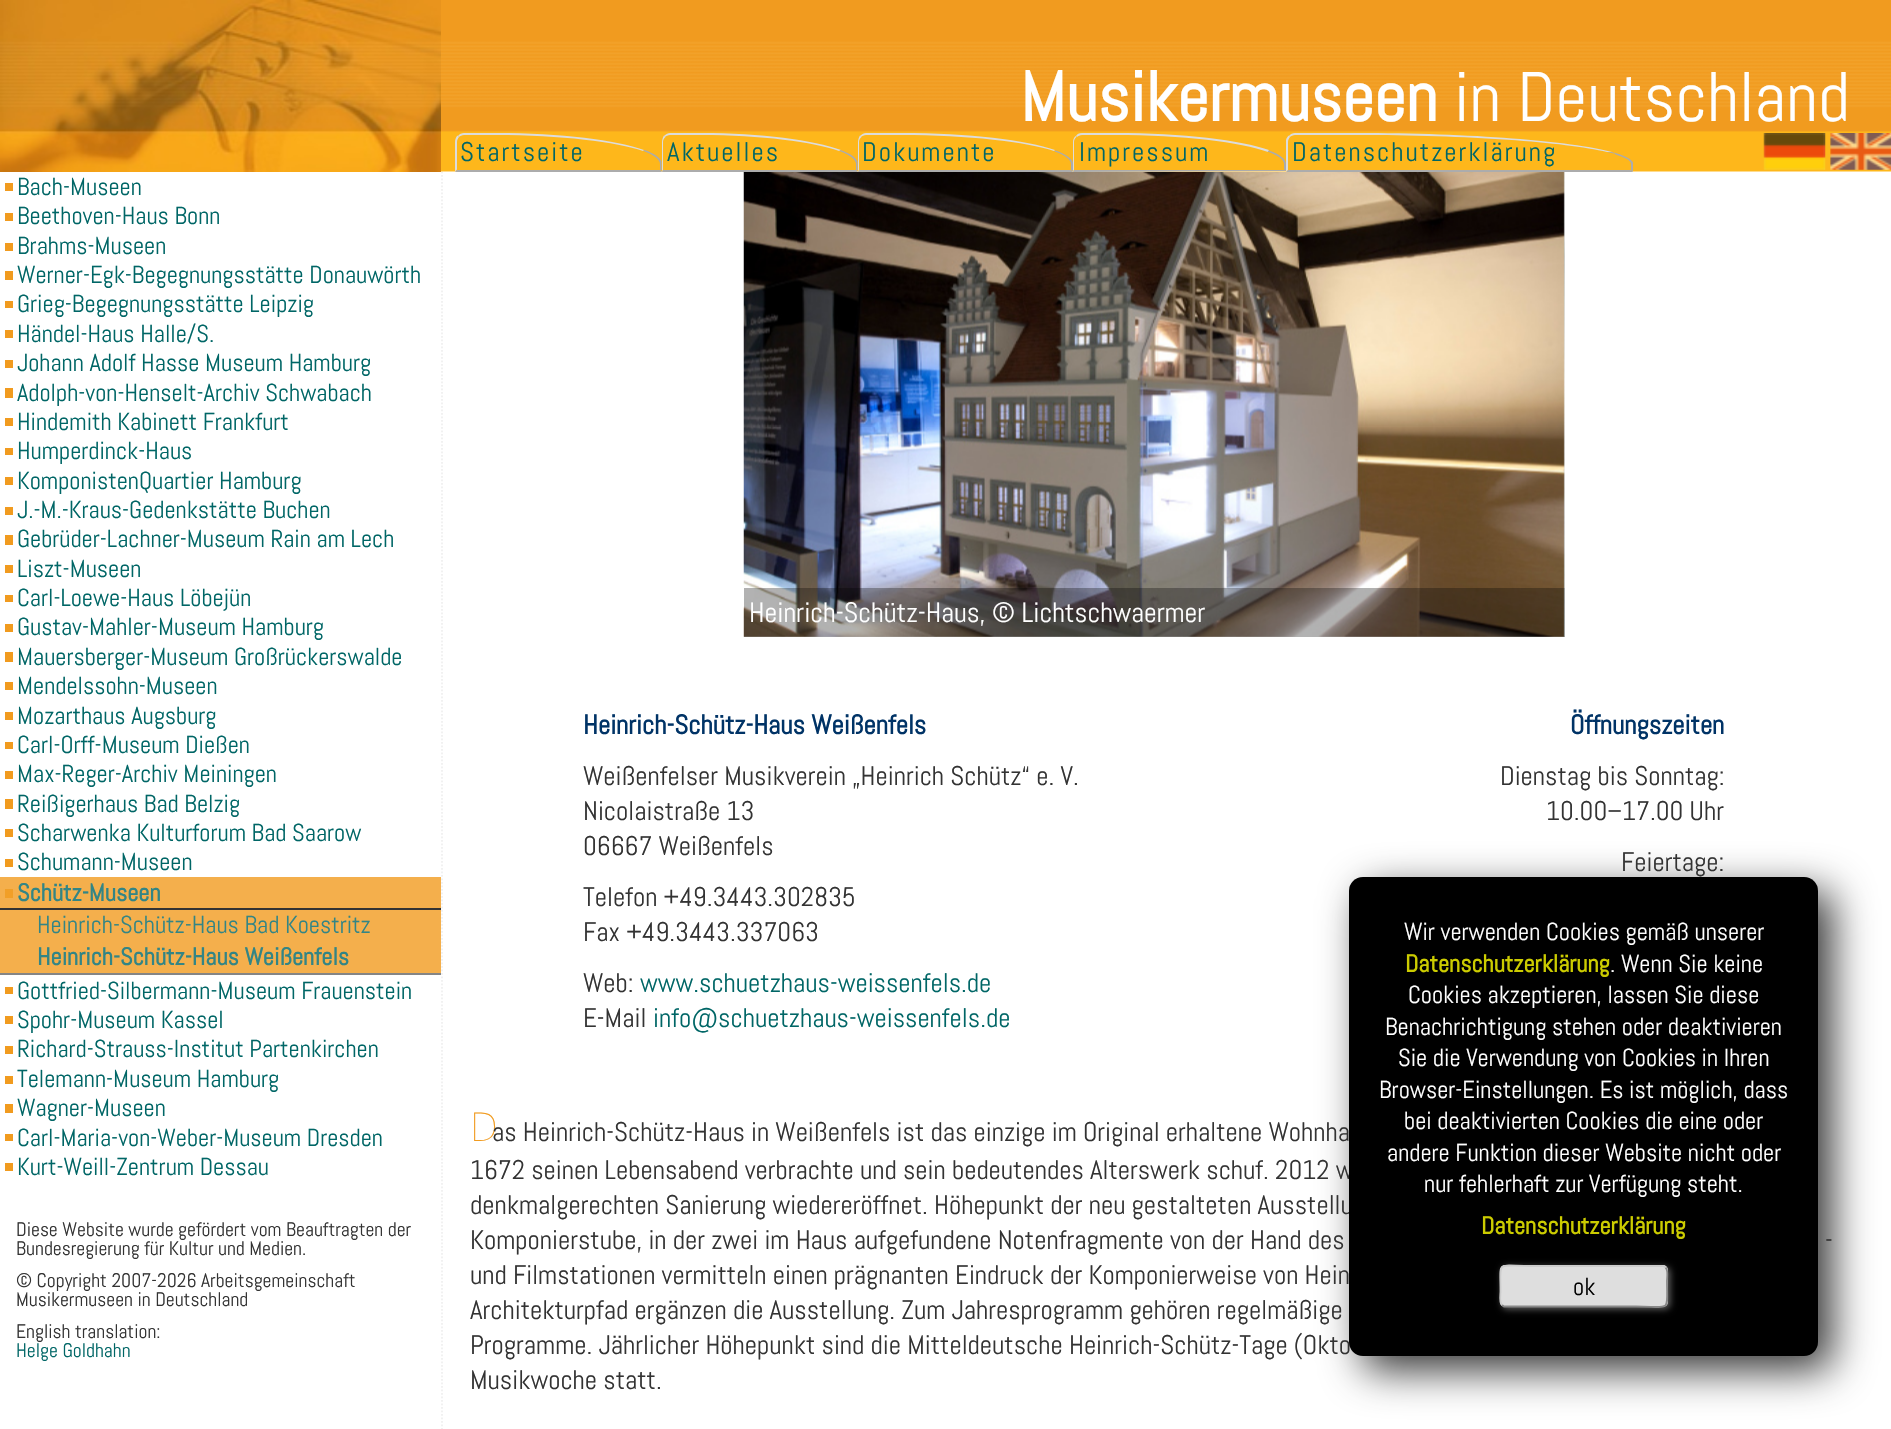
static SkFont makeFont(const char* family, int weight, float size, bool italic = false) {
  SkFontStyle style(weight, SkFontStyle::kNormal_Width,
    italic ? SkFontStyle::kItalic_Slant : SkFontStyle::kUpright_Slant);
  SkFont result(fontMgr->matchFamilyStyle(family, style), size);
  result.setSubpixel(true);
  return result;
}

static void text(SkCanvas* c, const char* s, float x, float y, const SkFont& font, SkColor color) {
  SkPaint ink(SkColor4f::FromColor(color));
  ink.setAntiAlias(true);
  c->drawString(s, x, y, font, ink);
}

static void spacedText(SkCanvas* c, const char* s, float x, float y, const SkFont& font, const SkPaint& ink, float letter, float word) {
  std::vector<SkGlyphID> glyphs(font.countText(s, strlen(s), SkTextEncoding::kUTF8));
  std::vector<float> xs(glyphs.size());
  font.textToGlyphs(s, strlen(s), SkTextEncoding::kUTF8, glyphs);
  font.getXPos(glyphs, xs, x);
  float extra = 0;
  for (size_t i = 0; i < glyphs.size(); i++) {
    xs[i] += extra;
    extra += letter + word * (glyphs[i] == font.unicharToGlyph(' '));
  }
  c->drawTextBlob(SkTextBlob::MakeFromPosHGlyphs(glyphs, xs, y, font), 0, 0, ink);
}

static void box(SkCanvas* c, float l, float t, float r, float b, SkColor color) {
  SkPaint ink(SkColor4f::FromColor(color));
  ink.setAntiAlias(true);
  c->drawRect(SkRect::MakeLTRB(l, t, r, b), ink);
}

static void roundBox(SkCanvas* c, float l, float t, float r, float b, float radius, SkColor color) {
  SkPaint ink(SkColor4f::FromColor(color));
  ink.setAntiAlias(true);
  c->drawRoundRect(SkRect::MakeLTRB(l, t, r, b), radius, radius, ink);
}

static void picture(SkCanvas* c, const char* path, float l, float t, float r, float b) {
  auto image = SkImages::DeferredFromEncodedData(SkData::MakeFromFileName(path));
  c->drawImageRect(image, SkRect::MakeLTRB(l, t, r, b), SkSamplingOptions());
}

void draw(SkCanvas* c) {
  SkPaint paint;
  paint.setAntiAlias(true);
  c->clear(0xffffffff);
  paint.setStyle(SkPaint::kStroke_Style);
  paint.setStrokeWidth(1.8f);
  paint.setColor(0xfff0f0f0);
  paint.setPathEffect(SkDashPathEffect::Make({{1.75f, 1.75f}}, 0));
  c->drawPath(SkPathBuilder().moveTo(442, 171.5f).lineTo(442, 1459.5f).detach(), paint);
  paint.setPathEffect(nullptr);
  picture(c, "img_01.png", 441, 0, 1891, 172);
  picture(c, "img_02.png", 0, 0, 441, 172);
  SkFont face1 = makeFont("Abel", 700, 70);
  text(c, "Musikermuseen", 1020, 121, face1, 0xffffffff);
  SkFont face2 = makeFont("Abel", 400, 70);
  text(c, "in Deutschland", 1454, 121, face2, 0xffffffff);
  paint.setStyle(SkPaint::kFill_Style);
  paint.setColor(0xffdcdcdc);
  c->drawPath(SkPathBuilder().moveTo(464, 133).cubicTo(462, 133, 459, 134, 458, 136).lineTo(459, 137).cubicTo(460, 136, 462, 135, 464, 135).lineTo(496, 135).cubicTo(561, 135, 617, 142, 643, 151).lineTo(644, 150).cubicTo(617, 140, 561, 133, 496, 133).close().detach(), paint);
  SkFont face3 = makeFont("Abel", 400, 26.95f);
  paint.setColor(0xff006666);
  spacedText(c, "Startseite", 460, 161, face3, paint, 2, 0);
  paint.setColor(0xffacacac);
  c->drawPath(SkPathBuilder().moveTo(644.5f, 150).cubicTo(654, 153.5f, 660, 157.5f, 661.5f, 161.5f).lineTo(661.5f, 171.5f).lineTo(660, 170).lineTo(660, 164).cubicTo(660, 159.5f, 654, 155, 643.5f, 151).close().detach(), paint);
  c->drawPath(SkPathBuilder().moveTo(662, 172).lineTo(660, 170).lineTo(457, 170).lineTo(455, 172).close().detach(), paint);
  paint.setColor(0xffdcdcdc);
  c->drawPath(SkPathBuilder().moveTo(455, 171.5f).lineTo(457, 169.5f).lineTo(457, 142).cubicTo(457, 140, 458, 138, 459, 137).lineTo(457.5f, 135.5f).cubicTo(456, 137, 455, 139.5f, 455, 142).close().detach(), paint);
  c->drawPath(SkPathBuilder().moveTo(670, 133).cubicTo(668, 133, 666, 134, 664, 136).lineTo(665, 137).cubicTo(666, 136, 668, 135, 670, 135).lineTo(701, 135).cubicTo(761, 135, 814, 142, 839, 151).lineTo(841, 150).cubicTo(814, 140, 761, 133, 701, 133).close().detach(), paint);
  paint.setColor(0xff006666);
  spacedText(c, "Aktuelles", 667, 161, face3, paint, 2, 0);
  paint.setColor(0xffacacac);
  c->drawPath(SkPathBuilder().moveTo(840.5f, 150).cubicTo(850, 153.5f, 856, 157.5f, 857.5f, 161.5f).lineTo(857.5f, 171.5f).lineTo(856, 170).lineTo(856, 164).cubicTo(856, 159.5f, 850, 155, 839.5f, 151).close().detach(), paint);
  c->drawPath(SkPathBuilder().moveTo(858, 172).lineTo(662, 172).lineTo(663, 170).lineTo(856, 170).close().detach(), paint);
  paint.setColor(0xffdcdcdc);
  c->drawPath(SkPathBuilder().moveTo(664, 135.5f).cubicTo(663, 137, 662, 139.5f, 662, 142).lineTo(662, 171).lineTo(663, 170).lineTo(663, 142).cubicTo(663, 140, 664, 138, 665.5f, 137).close().detach(), paint);
  c->drawPath(SkPathBuilder().moveTo(866, 133).cubicTo(864, 133, 862, 134, 860, 136).lineTo(861, 137).cubicTo(862, 136, 864, 135, 866, 135).lineTo(901, 135).cubicTo(969, 135, 1027, 142, 1054, 151).lineTo(1055, 150).cubicTo(1027, 140, 969, 133, 901, 133).close().detach(), paint);
  paint.setColor(0xff006666);
  spacedText(c, "Dokumente", 862, 161, face3, paint, 2, 0);
  paint.setColor(0xffacacac);
  c->drawPath(SkPathBuilder().moveTo(1055.5f, 150.5f).cubicTo(1065.5f, 154, 1071.5f, 158, 1073, 162.5f).lineTo(1073, 171.5f).lineTo(1071, 170).lineTo(1071, 164).cubicTo(1071, 159.5f, 1065, 155, 1054.5f, 151.5f).close().detach(), paint);
  c->drawPath(SkPathBuilder().moveTo(1073, 172).lineTo(858, 172).lineTo(859, 170).lineTo(1071, 170).close().detach(), paint);
  paint.setColor(0xffdcdcdc);
  c->drawPath(SkPathBuilder().moveTo(860, 135.5f).cubicTo(859, 137, 858, 139.5f, 858, 142).lineTo(858, 171).lineTo(859, 170).lineTo(859, 142).cubicTo(859, 140, 860, 138, 861.5f, 137).close().detach(), paint);
  c->drawPath(SkPathBuilder().moveTo(1082, 133).cubicTo(1079, 133, 1077, 134, 1076, 136).lineTo(1077, 137).cubicTo(1078, 136, 1080, 135, 1082, 135).lineTo(1115, 135).cubicTo(1183, 135, 1241, 142, 1268, 152).lineTo(1269, 150).cubicTo(1241, 140, 1183, 133, 1115, 133).close().detach(), paint);
  paint.setColor(0xff006666);
  spacedText(c, "Impressum", 1079, 161, face3, paint, 2, 0);
  paint.setColor(0xffacacac);
  c->drawPath(SkPathBuilder().moveTo(1269, 150.5f).cubicTo(1280, 154.5f, 1286, 159, 1286, 164).lineTo(1286, 171).lineTo(1284, 169).lineTo(1284, 164).cubicTo(1284, 159.5f, 1278, 155.5f, 1267.5f, 151.5f).close().detach(), paint);
  c->drawPath(SkPathBuilder().moveTo(1073, 172).lineTo(1074, 170).lineTo(1284, 170).lineTo(1284, 169).lineTo(1286, 171).close().detach(), paint);
  paint.setColor(0xffdcdcdc);
  c->drawPath(SkPathBuilder().moveTo(1075.5f, 136).cubicTo(1074, 137.5f, 1073, 139.5f, 1073, 142).lineTo(1073, 171).lineTo(1074, 170).lineTo(1074, 142).cubicTo(1074, 140, 1075, 138, 1076.5f, 137).close().detach(), paint);
  c->drawPath(SkPathBuilder().moveTo(1295, 133).cubicTo(1293, 133, 1290, 134, 1289, 136).lineTo(1290, 137).cubicTo(1291, 136, 1293, 135, 1295, 135).lineTo(1356, 135).cubicTo(1468, 135, 1565, 142, 1607, 152).lineTo(1612, 152).cubicTo(1571, 141, 1472, 133, 1356, 133).close().detach(), paint);
  paint.setColor(0xffacacac);
  c->drawPath(SkPathBuilder().moveTo(1614, 152.5f).cubicTo(1625, 156, 1631.5f, 159, 1633, 162.5f).lineTo(1633, 171.5f).lineTo(1631, 170).lineTo(1631, 164).cubicTo(1631, 160.5f, 1625.5f, 157.5f, 1615.5f, 154.5f).close().detach(), paint);
  c->drawPath(SkPathBuilder(SkPathFillType::kEvenOdd).moveTo(1612, 152).cubicTo(1614, 153, 1614, 153, 1616, 154).lineTo(1607, 152).close().moveTo(1633, 172).lineTo(1631, 170).lineTo(1288, 170).lineTo(1286, 172).close().detach(), paint);
  paint.setColor(0xff006666);
  spacedText(c, "Datenschutzerklärung", 1292, 161, face3, paint, 2, 0);
  paint.setColor(0xffdcdcdc);
  c->drawPath(SkPathBuilder().moveTo(1286, 171.5f).lineTo(1286, 140).cubicTo(1286.5f, 138, 1287.5f, 136.5f, 1289, 135.5f).lineTo(1290, 137).cubicTo(1289, 138, 1288, 140, 1288, 142).lineTo(1288, 170).close().detach(), paint);
  picture(c, "img_03.png", 1763, 133, 1826, 170);
  picture(c, "img_04.png", 1830, 133, 1891, 170);
  box(c, 5, 183, 13, 191, 0xfff19b1f);
  SkFont face4 = makeFont("Abel", 400, 24.5f);
  text(c, "Bach-Museen", 17, 195, face4, 0xff006666);
  box(c, 5, 213, 13, 221, 0xfff19b1f);
  text(c, "Beethoven-Haus Bonn", 17, 224, face4, 0xff006666);
  box(c, 5, 243, 13, 251, 0xfff19b1f);
  text(c, "Brahms-Museen", 17, 254, face4, 0xff006666);
  box(c, 5, 271, 13, 280, 0xfff19b1f);
  text(c, "Werner-Egk-Begegnungsstätte Donauwörth", 17, 283, face4, 0xff006666);
  box(c, 5, 301, 13, 308, 0xfff19b1f);
  text(c, "Grieg-Begegnungsstätte Leipzig", 17, 312, face4, 0xff006666);
  box(c, 5, 330, 13, 338, 0xfff19b1f);
  text(c, "Händel-Haus Halle/S.", 17, 342, face4, 0xff006666);
  box(c, 5, 360, 13, 368, 0xfff19b1f);
  text(c, "Johann Adolf Hasse Museum Hamburg", 17, 371, face4, 0xff006666);
  box(c, 5, 388, 13, 398, 0xfff19b1f);
  text(c, "Adolph-von-Henselt-Archiv Schwabach", 17, 401, face4, 0xff006666);
  box(c, 5, 418, 13, 426, 0xfff19b1f);
  text(c, "Hindemith Kabinett Frankfurt", 17, 430, face4, 0xff006666);
  box(c, 5, 448, 13, 455, 0xfff19b1f);
  text(c, "Humperdinck-Haus", 17, 459, face4, 0xff006666);
  box(c, 5, 477, 13, 485, 0xfff19b1f);
  text(c, "KomponistenQuartier Hamburg", 17, 489, face4, 0xff006666);
  box(c, 5, 507, 13, 515, 0xfff19b1f);
  text(c, "J.-M.-Kraus-Gedenkstätte Buchen", 17, 518, face4, 0xff006666);
  box(c, 5, 535, 13, 545, 0xfff19b1f);
  text(c, "Gebrüder-Lachner-Museum Rain am Lech", 17, 547, face4, 0xff006666);
  box(c, 5, 565, 13, 573, 0xfff19b1f);
  text(c, "Liszt-Museen", 17, 577, face4, 0xff006666);
  box(c, 5, 595, 13, 602, 0xfff19b1f);
  text(c, "Carl-Loewe-Haus Löbejün", 17, 606, face4, 0xff006666);
  box(c, 5, 624, 13, 632, 0xfff19b1f);
  text(c, "Gustav-Mahler-Museum Hamburg", 17, 635, face4, 0xff006666);
  box(c, 5, 652, 13, 662, 0xfff19b1f);
  text(c, "Mauersberger-Museum Großrückerswalde", 17, 665, face4, 0xff006666);
  box(c, 5, 682, 13, 690, 0xfff19b1f);
  text(c, "Mendelssohn-Museen", 17, 694, face4, 0xff006666);
  box(c, 5, 712, 13, 720, 0xfff19b1f);
  text(c, "Mozarthaus Augsburg", 17, 724, face4, 0xff006666);
  box(c, 5, 742, 13, 749, 0xfff19b1f);
  text(c, "Carl-Orff-Museum Dießen", 17, 753, face4, 0xff006666);
  box(c, 5, 771, 13, 779, 0xfff19b1f);
  text(c, "Max-Reger-Archiv Meiningen", 17, 782, face4, 0xff006666);
  box(c, 5, 799, 13, 809, 0xfff19b1f);
  text(c, "Reißigerhaus Bad Belzig", 17, 812, face4, 0xff006666);
  box(c, 5, 829, 13, 837, 0xfff19b1f);
  text(c, "Scharwenka Kulturforum Bad Saarow", 17, 841, face4, 0xff006666);
  box(c, 5, 859, 13, 867, 0xfff19b1f);
  text(c, "Schumann-Museen", 17, 870, face4, 0xff006666);
  box(c, 0, 877, 441, 908, 0xfff4af4c);
  box(c, 0, 908, 441, 910, 0xff333333);
  box(c, 5, 889, 13, 898, 0xfff19f27);
  SkFont face5 = makeFont("Abel", 700, 24.5f);
  text(c, "Schütz-Museen", 17, 901, face5, 0xff338585);
  box(c, 0, 973, 441, 975, 0xff858585);
  box(c, 0, 910, 441, 973, 0xfff4af4c);
  text(c, "Heinrich-Schütz-Haus Bad Koestritz", 37, 933, face4, 0xff338585);
  text(c, "Heinrich-Schütz-Haus Weißenfels", 37, 965, face5, 0xff338585);
  box(c, 5, 987, 13, 994, 0xfff19b1f);
  text(c, "Gottfried-Silbermann-Museum Frauenstein", 17, 999, face4, 0xff006666);
  box(c, 5, 1016, 13, 1024, 0xfff19b1f);
  text(c, "Spohr-Museum Kassel", 17, 1028, face4, 0xff006666);
  box(c, 5, 1046, 13, 1054, 0xfff19b1f);
  text(c, "Richard-Strauss-Institut Partenkirchen", 17, 1057, face4, 0xff006666);
  box(c, 5, 1076, 13, 1084, 0xfff19b1f);
  text(c, "Telemann-Museum Hamburg", 17, 1087, face4, 0xff006666);
  box(c, 5, 1104, 13, 1113, 0xfff19b1f);
  text(c, "Wagner-Museen", 17, 1116, face4, 0xff006666);
  box(c, 5, 1134, 13, 1141, 0xfff19b1f);
  text(c, "Carl-Maria-von-Weber-Museum Dresden", 17, 1146, face4, 0xff006666);
  box(c, 5, 1163, 13, 1171, 0xfff19b1f);
  text(c, "Kurt-Weill-Zentrum Dessau", 17, 1175, face4, 0xff006666);
  SkFont face6 = makeFont("Abel", 400, 19.6f);
  text(c, "Diese Website wurde gefördert vom Beauftragten der", 16, 1236, face6, 0xff333333);
  text(c, "Bundesregierung für Kultur und Medien.", 16, 1255, face6, 0xff333333);
  text(c, "© Copyright 2007-2026 Arbeitsgemeinschaft", 16, 1287, face6, 0xff333333);
  text(c, "Musikermuseen in Deutschland", 16, 1306, face6, 0xff333333);
  text(c, "English translation:", 16, 1338, face6, 0xff333333);
  text(c, "Helge Goldhahn", 16, 1357, face6, 0xff006666);
  picture(c, "img_05.png", 743, 172, 1565, 637);
  box(c, 744, 588, 1565, 637, 0x4d000000);
  SkFont face7 = makeFont("Abel", 400, 28);
  text(c, "Heinrich-Schütz-Haus, © Lichtschwaermer", 749, 622, face7, 0xffffffff);
  picture(c, "img_06.png", 1563, 172, 1565, 637);
  SkFont face8 = makeFont("Abel", 700, 26.95f);
  text(c, "Heinrich-Schütz-Haus Weißenfels", 583, 734, face8, 0xff003366);
  text(c, "Weißenfelser Musikverein „Heinrich Schütz“ e. V.", 583, 785, face3, 0xff333333);
  text(c, "Nicolaistraße 13", 583, 820, face3, 0xff333333);
  text(c, "06667 Weißenfels", 583, 855, face3, 0xff333333);
  text(c, "Telefon +49.3443.302835", 583, 906, face3, 0xff333333);
  text(c, "Fax +49.3443.337063", 583, 941, face3, 0xff333333);
  text(c, "Web:", 583, 992, face3, 0xff333333);
  text(c, "www.schuetzhaus-weissenfels.de", 640, 992, face3, 0xff006666);
  text(c, "E-Mail", 583, 1027, face3, 0xff333333);
  text(c, "info@schuetzhaus-weissenfels.de", 653, 1027, face3, 0xff006666);
  text(c, "Öffnungszeiten", 1570, 734, face8, 0xff003366);
  text(c, "Dienstag bis Sonntag:", 1500, 785, face3, 0xff333333);
  text(c, "10.00–17.00 Uhr", 1546, 820, face3, 0xff333333);
  text(c, "Feiertage:", 1621, 871, face3, 0xff333333);
  SkFont face9 = makeFont("Noto Sans", 100, 40);
  text(c, "D", 470, 1141, face9, 0xfff19b1f);
  text(c, "as Heinrich-Schütz-Haus in Weißenfels ist das einzige im Original erhaltene Wohnha", 492, 1141, face3, 0xff333333);
  text(c, "1672 seinen Lebensabend verbrachte und sein bedeutendes Alterswerk schuf. 2012 w", 470, 1179, face3, 0xff333333);
  text(c, "denkmalgerechten Sanierung wiedereröffnet. Höhepunkt der neu gestalteten Ausstellu", 470, 1214, face3, 0xff333333);
  text(c, "Komponierstube, in der zwei im Haus aufgefundene Notenfragmente von der Hand des", 470, 1249, face3, 0xff333333);
  text(c, "-", 1825, 1249, face3, 0xff333333);
  text(c, "und Filmstationen vermitteln einen prägnanten Eindruck der Komponierweise von Hein", 470, 1284, face3, 0xff333333);
  text(c, "Architekturpfad ergänzen die Ausstellung. Zum Jahresprogramm gehören regelmäßige", 470, 1319, face3, 0xff333333);
  text(c, "Programme. Jährlicher Höhepunkt sind die Mitteldeutsche Heinrich-Schütz-Tage (Okto", 470, 1354, face3, 0xff333333);
  text(c, "Musikwoche statt.", 470, 1389, face3, 0xff333333);
  paint.setColor(0xff333333);
  paint.setMaskFilter(SkMaskFilter::MakeBlur(kNormal_SkBlurStyle, 21));
  c->drawRoundRect(SkRect::MakeLTRB(1363, 891, 1832, 1370), 14, 14, paint);
  paint.setMaskFilter(nullptr);
  roundBox(c, 1349, 877, 1818, 1356, 14, 0xff000000);
  text(c, "Wir verwenden Cookies gemäß unserer", 1404, 940, face4, 0xffffffff);
  text(c, "Datenschutzerklärung", 1405, 972, face5, 0xffcccc00);
  text(c, ". Wenn Sie keine", 1610, 972, face4, 0xffffffff);
  text(c, "Cookies akzeptieren, lassen Sie diese", 1408, 1003, face4, 0xffffffff);
  text(c, "Benachrichtigung stehen oder deaktivieren", 1385, 1035, face4, 0xffffffff);
  text(c, "Sie die Verwendung von Cookies in Ihren", 1398, 1066, face4, 0xffffffff);
  text(c, "Browser-Einstellungen. Es ist möglich, dass", 1379, 1098, face4, 0xffffffff);
  text(c, "bei deaktivierten Cookies die eine oder", 1404, 1129, face4, 0xffffffff);
  text(c, "andere Funktion dieser Website nicht oder", 1387, 1161, face4, 0xffffffff);
  text(c, "nur fehlerhaft zur Verfügung steht.", 1424, 1192, face4, 0xffffffff);
  text(c, "Datenschutzerklärung", 1481, 1234, face5, 0xffcccc00);
  paint.setColor(0xff666666);
  paint.setMaskFilter(SkMaskFilter::MakeBlur(kNormal_SkBlurStyle, 3.5f));
  c->drawRoundRect(SkRect::MakeLTRB(1502, 1267, 1670, 1309), 5, 5, paint);
  paint.setMaskFilter(nullptr);
  roundBox(c, 1500, 1265, 1668, 1307, 5, 0xffdedede);
  paint.setStyle(SkPaint::kStroke_Style);
  paint.setColor(0xff888888);
  c->drawPath(SkPathBuilder().moveTo(1665.5f, 1267.5f).cubicTo(1668.5f, 1270, 1667, 1278, 1667, 1281).cubicTo(1667, 1313, 1672, 1306.5f, 1636, 1306.5f).lineTo(1504, 1306.5f).lineTo(1502, 1305).detach(), paint);
  paint.setColor(0xffcccccc);
  c->drawPath(SkPathBuilder().moveTo(1502, 1305).cubicTo(1499, 1302.5f, 1500.5f, 1294.5f, 1500.5f, 1291.5f).cubicTo(1500.5f, 1259.5f, 1495.5f, 1266, 1531, 1266).lineTo(1663.5f, 1266).lineTo(1665.5f, 1267.5f).detach(), paint);
  text(c, "ok", 1573, 1295, face4, 0xff000000);
}
